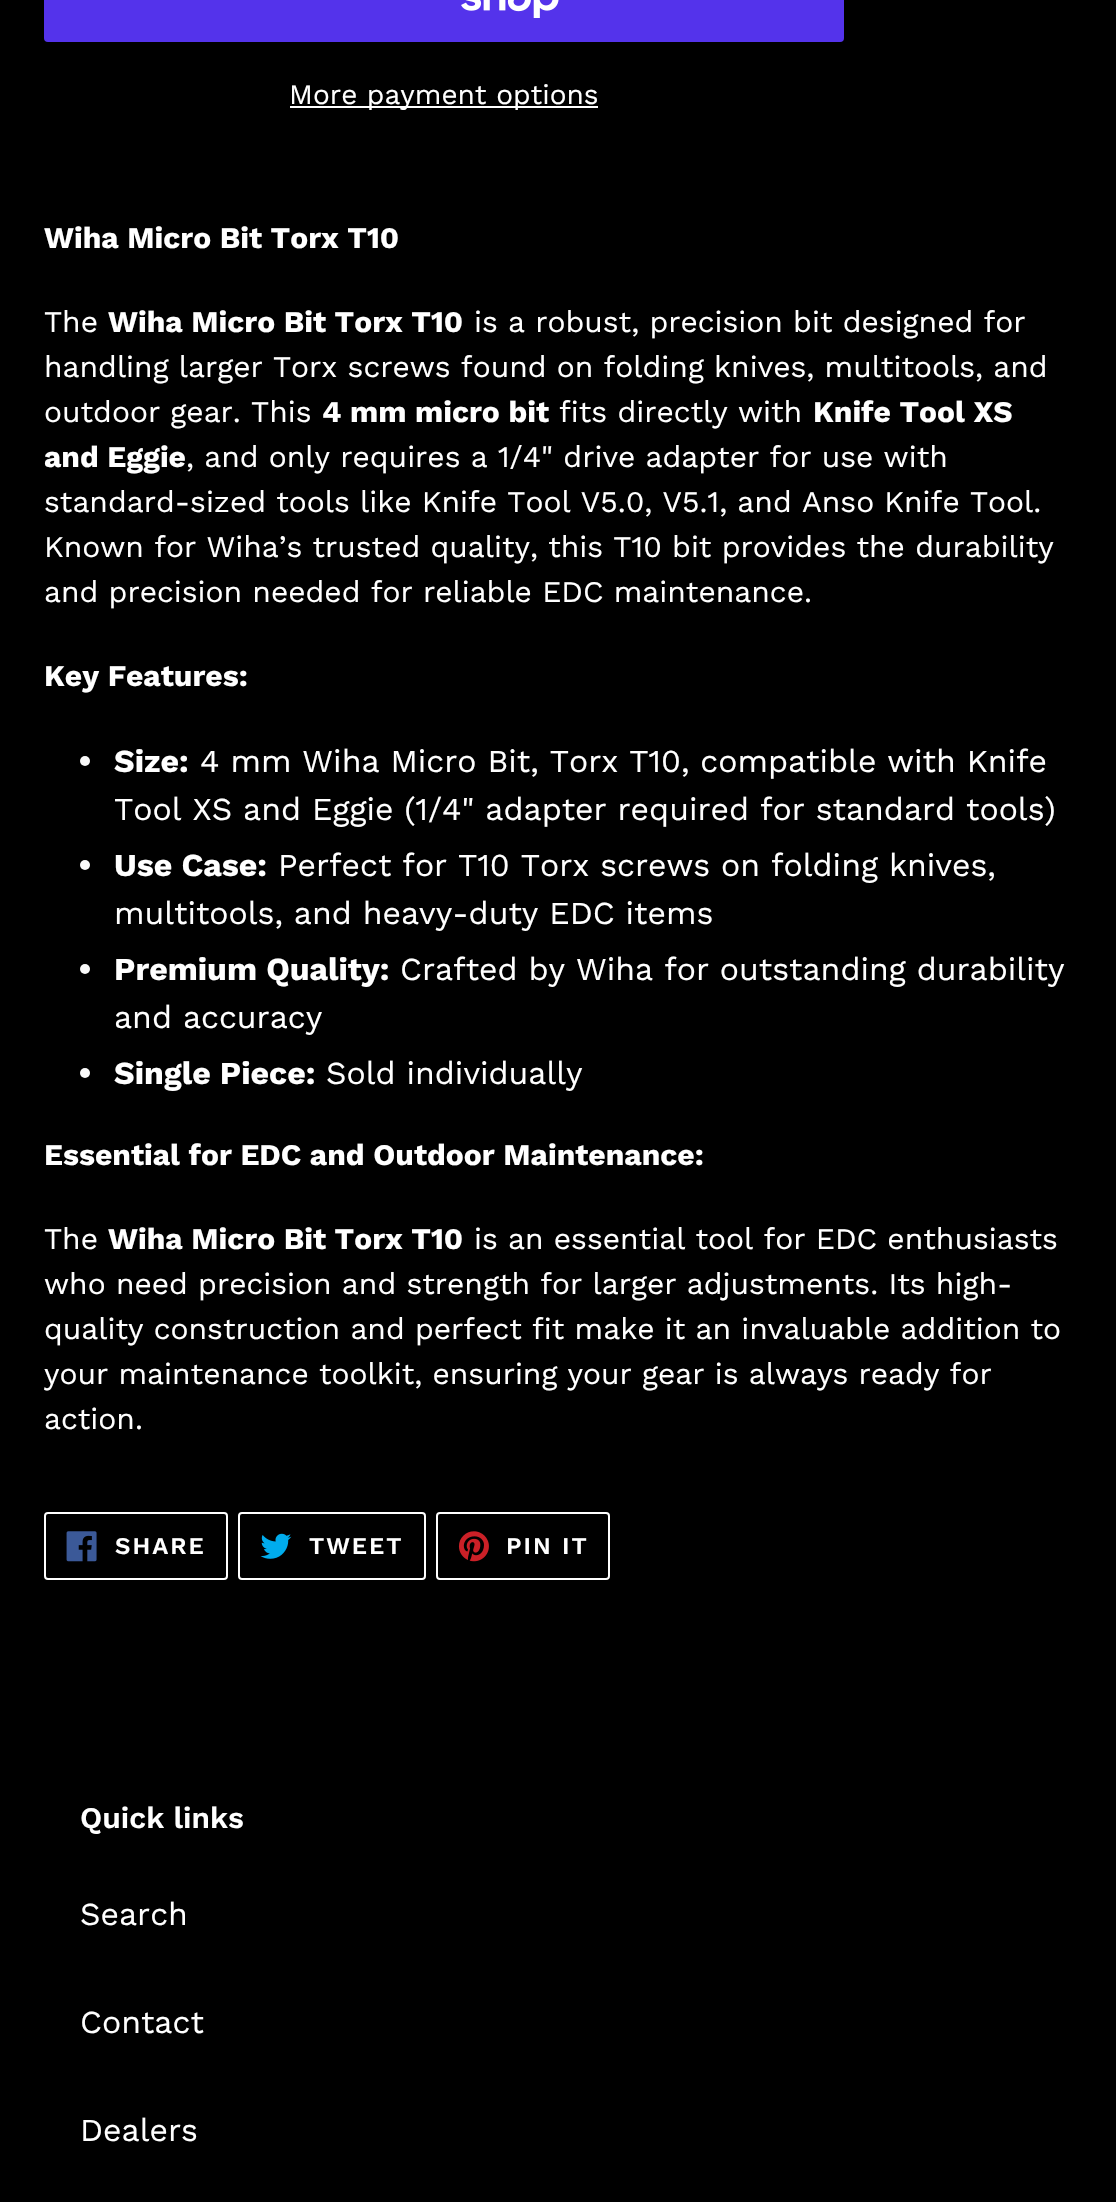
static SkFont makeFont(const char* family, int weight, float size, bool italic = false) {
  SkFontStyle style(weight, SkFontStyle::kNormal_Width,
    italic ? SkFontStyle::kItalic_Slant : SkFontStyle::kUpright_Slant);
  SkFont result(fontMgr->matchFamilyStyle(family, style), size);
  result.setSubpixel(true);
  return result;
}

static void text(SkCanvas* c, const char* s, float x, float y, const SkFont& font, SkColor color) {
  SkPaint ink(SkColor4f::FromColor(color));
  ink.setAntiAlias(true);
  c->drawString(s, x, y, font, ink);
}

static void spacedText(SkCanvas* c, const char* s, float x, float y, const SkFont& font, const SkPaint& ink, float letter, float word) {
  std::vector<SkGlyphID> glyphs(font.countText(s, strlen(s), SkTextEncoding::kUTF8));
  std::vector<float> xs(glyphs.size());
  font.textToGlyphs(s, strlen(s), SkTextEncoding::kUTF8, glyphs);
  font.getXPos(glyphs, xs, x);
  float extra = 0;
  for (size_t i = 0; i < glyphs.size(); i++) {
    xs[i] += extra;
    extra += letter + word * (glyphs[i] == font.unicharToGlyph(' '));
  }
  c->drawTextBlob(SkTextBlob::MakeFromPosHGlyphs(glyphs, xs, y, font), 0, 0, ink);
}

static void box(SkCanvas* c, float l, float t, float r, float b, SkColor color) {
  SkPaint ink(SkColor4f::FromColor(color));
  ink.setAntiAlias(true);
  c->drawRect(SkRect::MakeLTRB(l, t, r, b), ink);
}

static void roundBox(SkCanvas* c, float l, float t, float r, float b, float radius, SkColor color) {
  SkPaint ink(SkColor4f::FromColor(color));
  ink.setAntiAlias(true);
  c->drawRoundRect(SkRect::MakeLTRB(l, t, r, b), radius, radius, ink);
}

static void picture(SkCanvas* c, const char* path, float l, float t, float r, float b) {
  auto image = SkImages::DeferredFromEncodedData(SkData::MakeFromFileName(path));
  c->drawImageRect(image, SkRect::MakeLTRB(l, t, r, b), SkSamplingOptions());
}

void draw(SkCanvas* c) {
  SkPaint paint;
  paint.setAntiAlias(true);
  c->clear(0xff000000);
  roundBox(c, 44, -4, 844, 42, 4, 0xff5433eb);
  picture(c, "img_01.png", 461, 0, 559, 18);
  box(c, 290, 106, 598, 108, 0xffffffff);
  SkFont face1 = makeFont("Work Sans", 400, 28);
  text(c, "More payment options", 289, 104, face1, 0xffffffff);
  SkFont face2 = makeFont("Work Sans", 700, 30);
  text(c, "Wiha Micro Bit Torx T10", 44, 248, face2, 0xffffffff);
  SkFont face3 = makeFont("Work Sans", 400, 30);
  text(c, "The", 44, 332, face3, 0xffffffff);
  text(c, "Wiha Micro Bit Torx T10", 108, 332, face2, 0xffffffff);
  text(c, "is a robust, precision bit designed for", 474, 332, face3, 0xffffffff);
  text(c, "handling larger Torx screws found on folding knives, multitools, and", 44, 377, face3, 0xffffffff);
  text(c, "outdoor gear. This", 44, 422, face3, 0xffffffff);
  text(c, "4 mm micro bit", 322, 422, face2, 0xffffffff);
  text(c, "fits directly with", 559, 422, face3, 0xffffffff);
  text(c, "Knife Tool XS", 813, 422, face2, 0xffffffff);
  text(c, "and Eggie", 44, 467, face2, 0xffffffff);
  text(c, ", and only requires a 1/4\" drive adapter for use with", 186, 467, face3, 0xffffffff);
  text(c, "standard-sized tools like Knife Tool V5.0, V5.1, and Anso Knife Tool.", 44, 512, face3, 0xffffffff);
  text(c, "Known for Wiha’s trusted quality, this T10 bit provides the durability", 44, 557, face3, 0xffffffff);
  text(c, "and precision needed for reliable EDC maintenance.", 44, 602, face3, 0xffffffff);
  text(c, "Key Features:", 44, 686, face2, 0xffffffff);
  paint.setColor(0xfffafafa);
  c->drawCircle(85, 761, 5, paint);
  SkFont face4 = makeFont("Work Sans", 700, 32);
  text(c, "Size:", 114, 772, face4, 0xffffffff);
  SkFont face5 = makeFont("Work Sans", 400, 32);
  text(c, "4 mm Wiha Micro Bit, Torx T10, compatible with Knife", 200, 772, face5, 0xffffffff);
  text(c, "Tool XS and Eggie (1/4\" adapter required for standard tools)", 114, 820, face5, 0xffffffff);
  c->drawCircle(85, 865, 5, paint);
  text(c, "Use Case:", 114, 876, face4, 0xffffffff);
  text(c, "Perfect for T10 Torx screws on folding knives,", 278, 876, face5, 0xffffffff);
  text(c, "multitools, and heavy-duty EDC items", 114, 924, face5, 0xffffffff);
  c->drawCircle(85, 969, 5, paint);
  text(c, "Premium Quality:", 114, 980, face4, 0xffffffff);
  text(c, "Crafted by Wiha for outstanding durability", 400, 980, face5, 0xffffffff);
  text(c, "and accuracy", 114, 1028, face5, 0xffffffff);
  c->drawCircle(85, 1073, 5, paint);
  text(c, "Single Piece:", 114, 1084, face4, 0xffffffff);
  text(c, "Sold individually", 326, 1084, face5, 0xffffffff);
  text(c, "Essential for EDC and Outdoor Maintenance:", 44, 1165, face2, 0xffffffff);
  text(c, "The", 44, 1249, face3, 0xffffffff);
  text(c, "Wiha Micro Bit Torx T10", 108, 1249, face2, 0xffffffff);
  text(c, "is an essential tool for EDC enthusiasts", 474, 1249, face3, 0xffffffff);
  text(c, "who need precision and strength for larger adjustments. Its high-", 44, 1294, face3, 0xffffffff);
  text(c, "quality construction and perfect fit make it an invaluable addition to", 44, 1339, face3, 0xffffffff);
  text(c, "your maintenance toolkit, ensuring your gear is always ready for", 44, 1384, face3, 0xffffffff);
  text(c, "action.", 44, 1429, face3, 0xffffffff);
  paint.setStyle(SkPaint::kStroke_Style);
  paint.setStrokeWidth(2);
  paint.setColor(0xffffffff);
  c->drawRoundRect(SkRect::MakeLTRB(45, 1513, 227, 1579), 3, 3, paint);
  picture(c, "img_02.png", 66, 1531, 97, 1562);
  SkFont face6 = makeFont("Work Sans", 600, 24);
  paint.setStyle(SkPaint::kFill_Style);
  spacedText(c, "SHARE", 115, 1554, face6, paint, 2, 0);
  paint.setStyle(SkPaint::kStroke_Style);
  c->drawRoundRect(SkRect::MakeLTRB(239, 1513, 425, 1579), 3, 3, paint);
  picture(c, "img_03.png", 260, 1533, 292, 1559);
  paint.setStyle(SkPaint::kFill_Style);
  spacedText(c, "TWEET", 309, 1554, face6, paint, 2, 0);
  paint.setStyle(SkPaint::kStroke_Style);
  c->drawRoundRect(SkRect::MakeLTRB(437, 1513, 609, 1579), 3, 3, paint);
  picture(c, "img_04.png", 458, 1531, 489, 1562);
  paint.setStyle(SkPaint::kFill_Style);
  spacedText(c, "PIN IT", 506, 1554, face6, paint, 2, 0);
  SkFont face7 = makeFont("Work Sans", 600, 30);
  text(c, "Quick links", 80, 1828, face7, 0xffffffff);
  text(c, "Search", 80, 1925, face5, 0xffffffff);
  text(c, "Contact", 80, 2033, face5, 0xffffffff);
  text(c, "Dealers", 80, 2141, face5, 0xffffffff);
}
